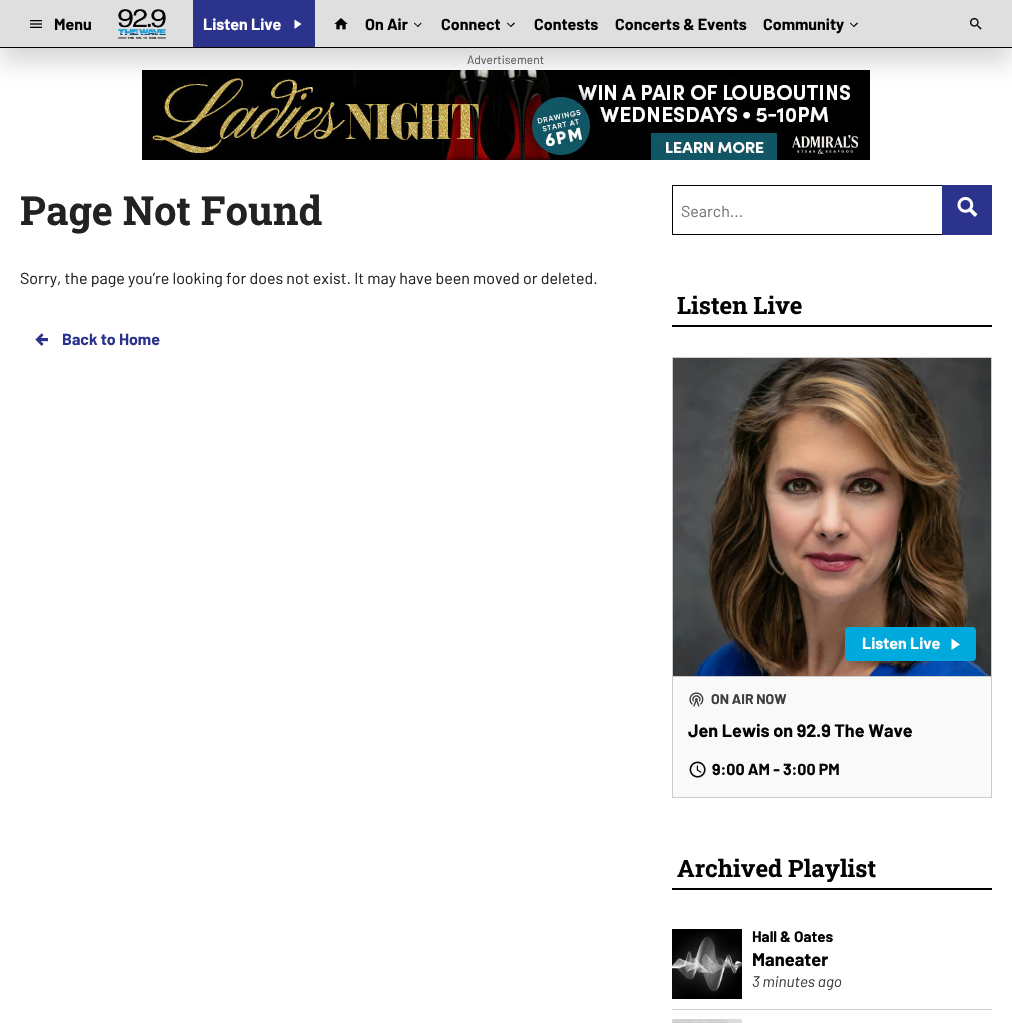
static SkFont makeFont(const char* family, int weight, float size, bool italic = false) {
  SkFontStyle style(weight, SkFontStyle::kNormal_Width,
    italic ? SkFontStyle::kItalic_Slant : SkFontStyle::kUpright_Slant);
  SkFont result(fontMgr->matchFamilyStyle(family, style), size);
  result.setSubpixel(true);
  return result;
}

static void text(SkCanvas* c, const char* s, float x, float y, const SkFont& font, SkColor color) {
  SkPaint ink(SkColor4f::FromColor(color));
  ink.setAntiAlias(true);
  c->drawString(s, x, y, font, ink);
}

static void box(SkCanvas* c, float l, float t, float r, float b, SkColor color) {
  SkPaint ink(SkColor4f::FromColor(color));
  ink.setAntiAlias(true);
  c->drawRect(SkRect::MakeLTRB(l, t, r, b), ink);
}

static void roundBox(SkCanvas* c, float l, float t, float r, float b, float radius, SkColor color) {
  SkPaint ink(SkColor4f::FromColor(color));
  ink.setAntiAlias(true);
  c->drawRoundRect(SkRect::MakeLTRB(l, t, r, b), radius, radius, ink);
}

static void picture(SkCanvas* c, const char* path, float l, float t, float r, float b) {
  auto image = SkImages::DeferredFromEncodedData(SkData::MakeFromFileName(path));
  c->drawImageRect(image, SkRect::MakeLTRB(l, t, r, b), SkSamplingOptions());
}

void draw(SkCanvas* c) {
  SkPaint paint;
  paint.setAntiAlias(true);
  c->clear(0xffffffff);
  picture(c, "img_05.png", 142, 70, 870, 160);
  paint.setColor(0x29000000);
  paint.setMaskFilter(SkMaskFilter::MakeBlur(kNormal_SkBlurStyle, 12.5f));
  c->drawRect(SkRect::MakeLTRB(0, 14, 1012, 62), paint);
  paint.setMaskFilter(nullptr);
  box(c, 0, 0, 1012, 47, 0xffdfdfdf);
  box(c, 0, 47, 1012, 48, 0xff000000);
  picture(c, "img_01.png", 30, 20, 42, 28);
  SkFont face1 = makeFont("Barlow", 700, 16);
  text(c, "Menu", 54, 30, face1, 0xff030303);
  picture(c, "img_02.png", 118, 9, 166, 39);
  box(c, 193, 0, 315, 47, 0xff2b338c);
  text(c, "Listen Live", 203, 30, face1, 0xffffffff);
  paint.setColor(0xffffffff);
  c->drawPath(SkPathBuilder().moveTo(294.5f, 19.5f).lineTo(294.5f, 29).lineTo(301.5f, 24).close().detach(), paint);
  picture(c, "img_03.png", 334, 18, 348, 30);
  text(c, "On Air", 365, 30, face1, 0xff030303);
  paint.setColor(0xff000000);
  c->drawPath(SkPathBuilder().moveTo(421.5f, 23.5f).lineTo(418, 27).lineTo(417, 26.5f).lineTo(421, 22.5f).close().detach(), paint);
  c->drawPath(SkPathBuilder().moveTo(418.5f, 26.5f).lineTo(418, 27).lineTo(414, 23.5f).lineTo(414.5f, 22.5f).close().detach(), paint);
  text(c, "Connect", 441, 30, face1, 0xff030303);
  c->drawPath(SkPathBuilder().moveTo(515, 23.5f).lineTo(511, 27).lineTo(510, 26.5f).lineTo(514, 22.5f).close().detach(), paint);
  c->drawPath(SkPathBuilder().moveTo(511.5f, 26.5f).lineTo(511, 27).lineTo(507, 23.5f).lineTo(507.5f, 22.5f).close().detach(), paint);
  text(c, "Contests", 534, 30, face1, 0xff030303);
  text(c, "Concerts & Events", 615, 30, face1, 0xff030303);
  text(c, "Community", 763, 30, face1, 0xff030303);
  c->drawPath(SkPathBuilder().moveTo(858, 23.5f).lineTo(854, 27).lineTo(853, 26.5f).lineTo(857, 22.5f).close().detach(), paint);
  c->drawPath(SkPathBuilder().moveTo(854.5f, 26.5f).lineTo(854, 27).lineTo(850, 23.5f).lineTo(850.5f, 22.5f).close().detach(), paint);
  picture(c, "img_04.png", 970, 18, 982, 30);
  SkFont face2 = makeFont("Barlow", 400, 12);
  text(c, "Advertisement", 467, 64, face2, 0xff595959);
  SkFont face3 = makeFont("Roboto Slab", 700, 40);
  text(c, "Page Not Found", 20, 225, face3, 0xff222222);
  SkFont face4 = makeFont("Barlow", 400, 16);
  text(c, "Sorry, the page you’re looking for does not exist. It may have been moved or deleted.", 20, 284, face4, 0xff222222);
  picture(c, "img_06.png", 35, 333, 48, 346);
  text(c, "Back to Home", 62, 345, face1, 0xff2b338c);
  paint.setStyle(SkPaint::kStroke_Style);
  paint.setStrokeWidth(1);
  c->drawRect(SkRect::MakeLTRB(672.5f, 185.5f, 991.5f, 234.5f), paint);
  text(c, "Search...", 681, 217, face4, 0xff757575);
  box(c, 942, 185, 992, 235, 0xff2b338c);
  picture(c, "img_07.png", 957, 197, 978, 217);
  box(c, 672, 325, 992, 327, 0xff000000);
  SkFont face5 = makeFont("Roboto Slab", 700, 24);
  text(c, "Listen Live", 677, 314, face5, 0xff030303);
  box(c, 673, 677, 991, 797, 0xfff9f9f9);
  paint.setColor(0xffcccccc);
  c->drawRect(SkRect::MakeLTRB(672.5f, 357.5f, 991.5f, 797.5f), paint);
  box(c, 673, 676, 991, 677, 0xffcccccc);
  picture(c, "img_08.png", 673, 358, 991, 676);
  roundBox(c, 845, 627, 976, 661, 4, 0xff00aadc);
  text(c, "Listen Live", 862, 649, face1, 0xffffffff);
  paint.setStyle(SkPaint::kFill_Style);
  paint.setColor(0xffffffff);
  c->drawPath(SkPathBuilder().moveTo(951.5f, 638.5f).lineTo(951.5f, 650).lineTo(960, 644.5f).close().detach(), paint);
  picture(c, "img_09.png", 689, 692, 704, 707);
  SkFont face6 = makeFont("Barlow", 700, 14);
  text(c, "ON AIR NOW", 711, 704, face6, 0xff3e3e3e);
  SkFont face7 = makeFont("Barlow", 700, 18);
  text(c, "Jen Lewis on 92.9 The Wave", 688, 737, face7, 0xff030303);
  picture(c, "img_10.png", 689, 761, 706, 778);
  text(c, "9:00 AM - 3:00 PM", 712, 775, face1, 0xff030303);
  box(c, 672, 888, 992, 890, 0xff000000);
  text(c, "Archived Playlist", 677, 877, face5, 0xff030303);
  picture(c, "img_11.png", 672, 929, 742, 999);
  SkFont face8 = makeFont("Barlow", 700, 15.25f);
  text(c, "Hall & Oates", 752, 942, face8, 0xff030303);
  SkFont face9 = makeFont("Barlow", 700, 18.25f);
  text(c, "Maneater", 752, 966, face9, 0xff030303);
  SkFont face10 = makeFont("Barlow", 400, 15.25f, true);
  text(c, "3 minutes ago", 752, 987, face10, 0xff3e3e3e);
  box(c, 672, 1009, 992, 1010, 0xffcccccc);
  picture(c, "img_12.png", 672, 1019, 742, 1023);
}
